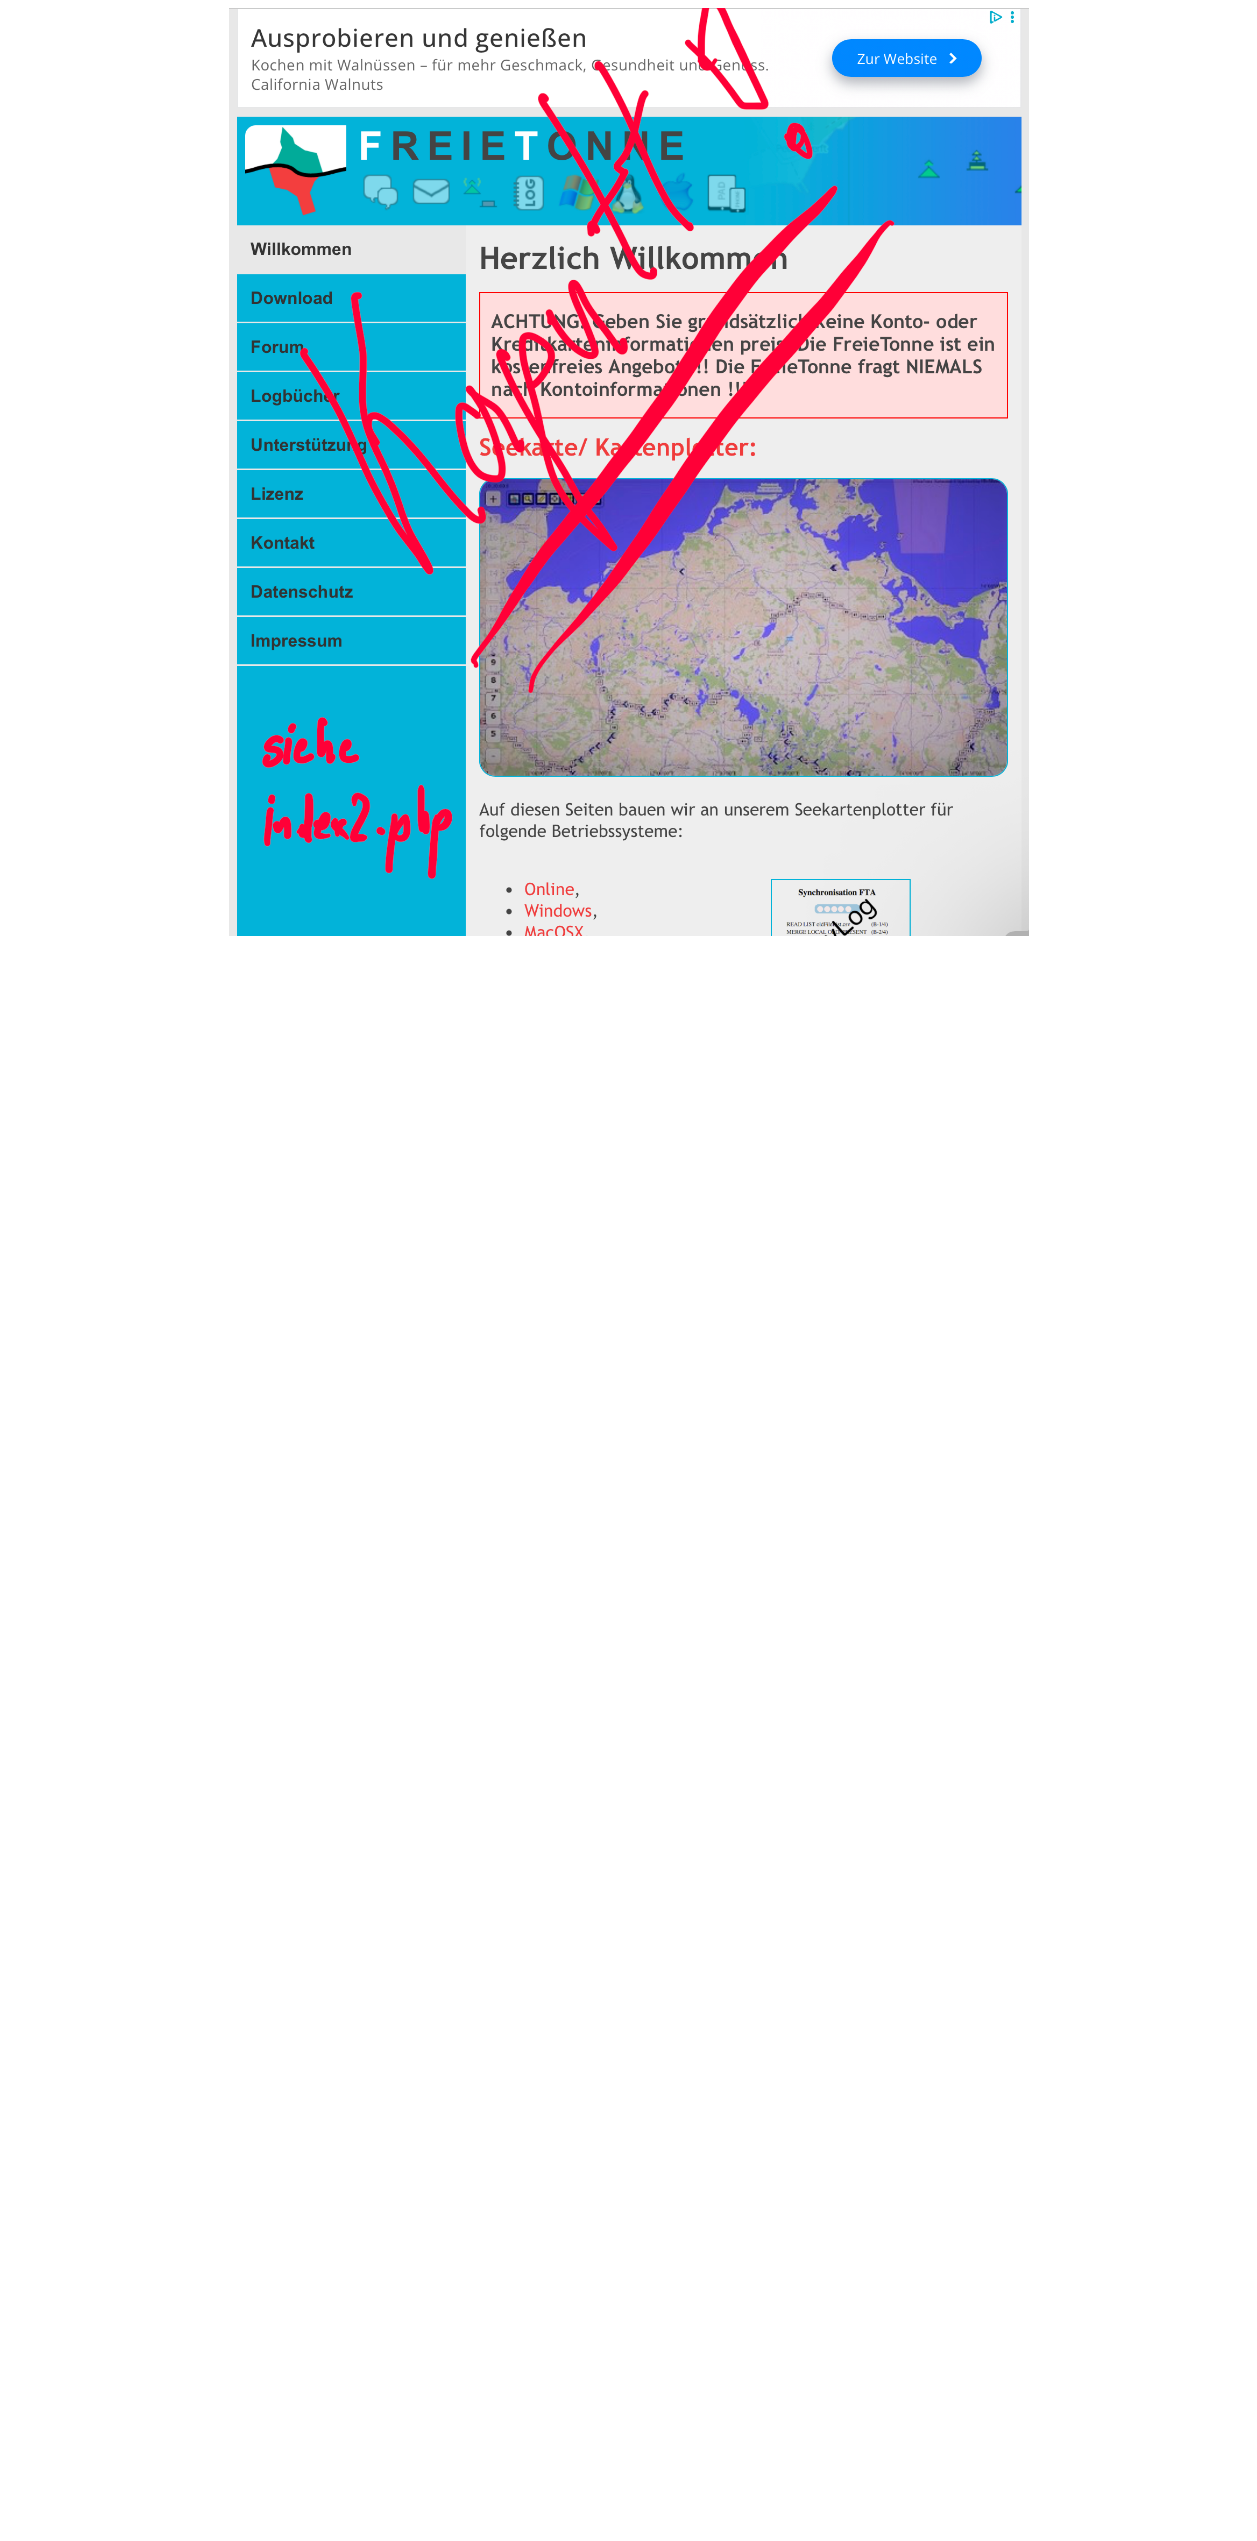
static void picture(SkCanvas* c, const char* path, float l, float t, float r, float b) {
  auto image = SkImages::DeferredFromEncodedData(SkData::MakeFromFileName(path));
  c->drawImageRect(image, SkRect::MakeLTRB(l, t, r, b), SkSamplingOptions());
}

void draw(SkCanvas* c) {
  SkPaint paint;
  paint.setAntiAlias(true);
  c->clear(0xffffffff);
  picture(c, "img_01.png", 229, 8, 1029, 936);
}
